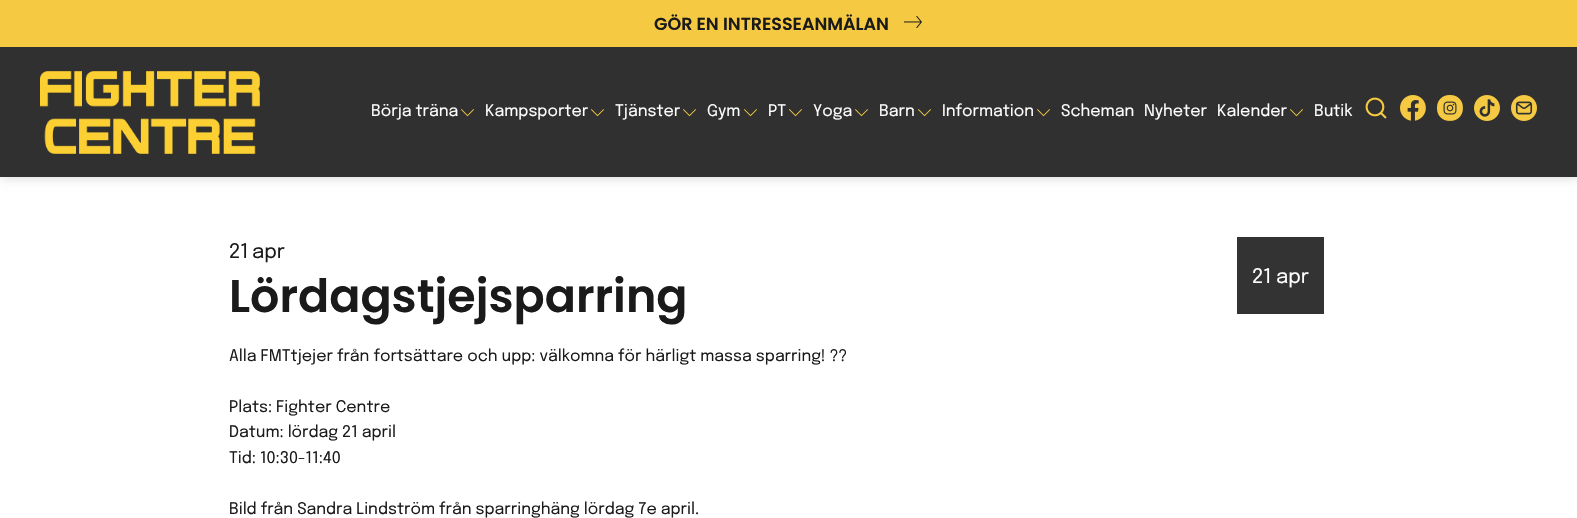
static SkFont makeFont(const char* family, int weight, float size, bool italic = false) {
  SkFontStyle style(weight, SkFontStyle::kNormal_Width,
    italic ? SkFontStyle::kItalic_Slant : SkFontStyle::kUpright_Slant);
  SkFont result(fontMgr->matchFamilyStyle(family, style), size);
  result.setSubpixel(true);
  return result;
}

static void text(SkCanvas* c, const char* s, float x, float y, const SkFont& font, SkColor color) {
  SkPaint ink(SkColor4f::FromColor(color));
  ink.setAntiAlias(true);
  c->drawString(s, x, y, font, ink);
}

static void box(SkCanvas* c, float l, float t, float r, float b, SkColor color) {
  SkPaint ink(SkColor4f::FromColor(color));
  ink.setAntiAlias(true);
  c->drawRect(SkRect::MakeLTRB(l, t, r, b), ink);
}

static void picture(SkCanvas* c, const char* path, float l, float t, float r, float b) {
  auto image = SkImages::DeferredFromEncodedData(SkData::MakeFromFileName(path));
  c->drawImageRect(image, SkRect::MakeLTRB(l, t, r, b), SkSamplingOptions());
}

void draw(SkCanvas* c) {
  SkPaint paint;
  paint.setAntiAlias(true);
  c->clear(0xffffffff);
  paint.setColor(0x26000000);
  paint.setMaskFilter(SkMaskFilter::MakeBlur(kNormal_SkBlurStyle, 5));
  c->drawRect(SkRect::MakeLTRB(1, 1, 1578, 178), paint);
  paint.setMaskFilter(nullptr);
  box(c, 0, 47, 1577, 177, 0xff303030);
  box(c, 0, 0, 1577, 47, 0xfff5c942);
  SkFont face1 = makeFont("Poppins", 600, 17.5f);
  text(c, "GÖR EN INTRESSEANMÄLAN", 654, 30, face1, 0xff1a1a1a);
  picture(c, "img_01.png", 904, 16, 922, 28);
  picture(c, "img_02.png", 40, 71, 260, 154);
  SkFont face2 = makeFont("Epilogue", 400, 16);
  text(c, "Börja träna", 371, 116, face2, 0xffffffff);
  picture(c, "img_03.png", 461, 109, 474, 117);
  text(c, "Kampsporter", 485, 116, face2, 0xffffffff);
  picture(c, "img_03.png", 591, 109, 604, 117);
  text(c, "Tjänster", 615, 116, face2, 0xffffffff);
  picture(c, "img_03.png", 683, 109, 696, 117);
  text(c, "Gym", 707, 116, face2, 0xffffffff);
  picture(c, "img_03.png", 744, 109, 757, 117);
  text(c, "PT", 768, 116, face2, 0xffffffff);
  picture(c, "img_03.png", 789, 109, 802, 117);
  text(c, "Yoga", 813, 116, face2, 0xffffffff);
  picture(c, "img_03.png", 855, 109, 868, 117);
  text(c, "Barn", 879, 116, face2, 0xffffffff);
  picture(c, "img_03.png", 918, 109, 931, 117);
  text(c, "Information", 942, 116, face2, 0xffffffff);
  picture(c, "img_03.png", 1037, 109, 1050, 117);
  text(c, "Scheman", 1061, 116, face2, 0xffffffff);
  text(c, "Nyheter", 1144, 116, face2, 0xffffffff);
  text(c, "Kalender", 1217, 116, face2, 0xffffffff);
  picture(c, "img_03.png", 1290, 109, 1303, 117);
  text(c, "Butik", 1314, 116, face2, 0xffffffff);
  picture(c, "img_04.png", 1365, 97, 1387, 119);
  picture(c, "img_05.png", 1400, 95, 1426, 121);
  picture(c, "img_06.png", 1437, 95, 1463, 121);
  picture(c, "img_07.png", 1474, 95, 1500, 121);
  picture(c, "img_08.png", 1511, 95, 1537, 121);
  SkFont face3 = makeFont("Epilogue", 400, 20);
  text(c, "21", 229, 258, face3, 0xff1a1a1a);
  text(c, "apr", 252, 258, face3, 0xff1a1a1a);
  SkFont face4 = makeFont("Poppins", 600, 46);
  text(c, "Lördagstjejsparring", 229, 312, face4, 0xff1a1a1a);
  box(c, 1237, 237, 1324, 314, 0xff333333);
  text(c, "21", 1252, 283, face3, 0xffffffff);
  text(c, "apr", 1276, 283, face3, 0xffffffff);
  text(c, "Alla FMTtjejer från fortsättare och upp: välkomna för härligt massa sparring! ?\077", 229, 361, face2, 0xff1a1a1a);
  text(c, "Plats: Fighter Centre", 229, 412, face2, 0xff1a1a1a);
  text(c, "Datum: lördag 21 april", 229, 437, face2, 0xff1a1a1a);
  text(c, "Tid: 10:30-11:40", 229, 463, face2, 0xff1a1a1a);
  text(c, "Bild från Sandra Lindström från sparringhäng lördag 7e april.", 229, 514, face2, 0xff1a1a1a);
}
